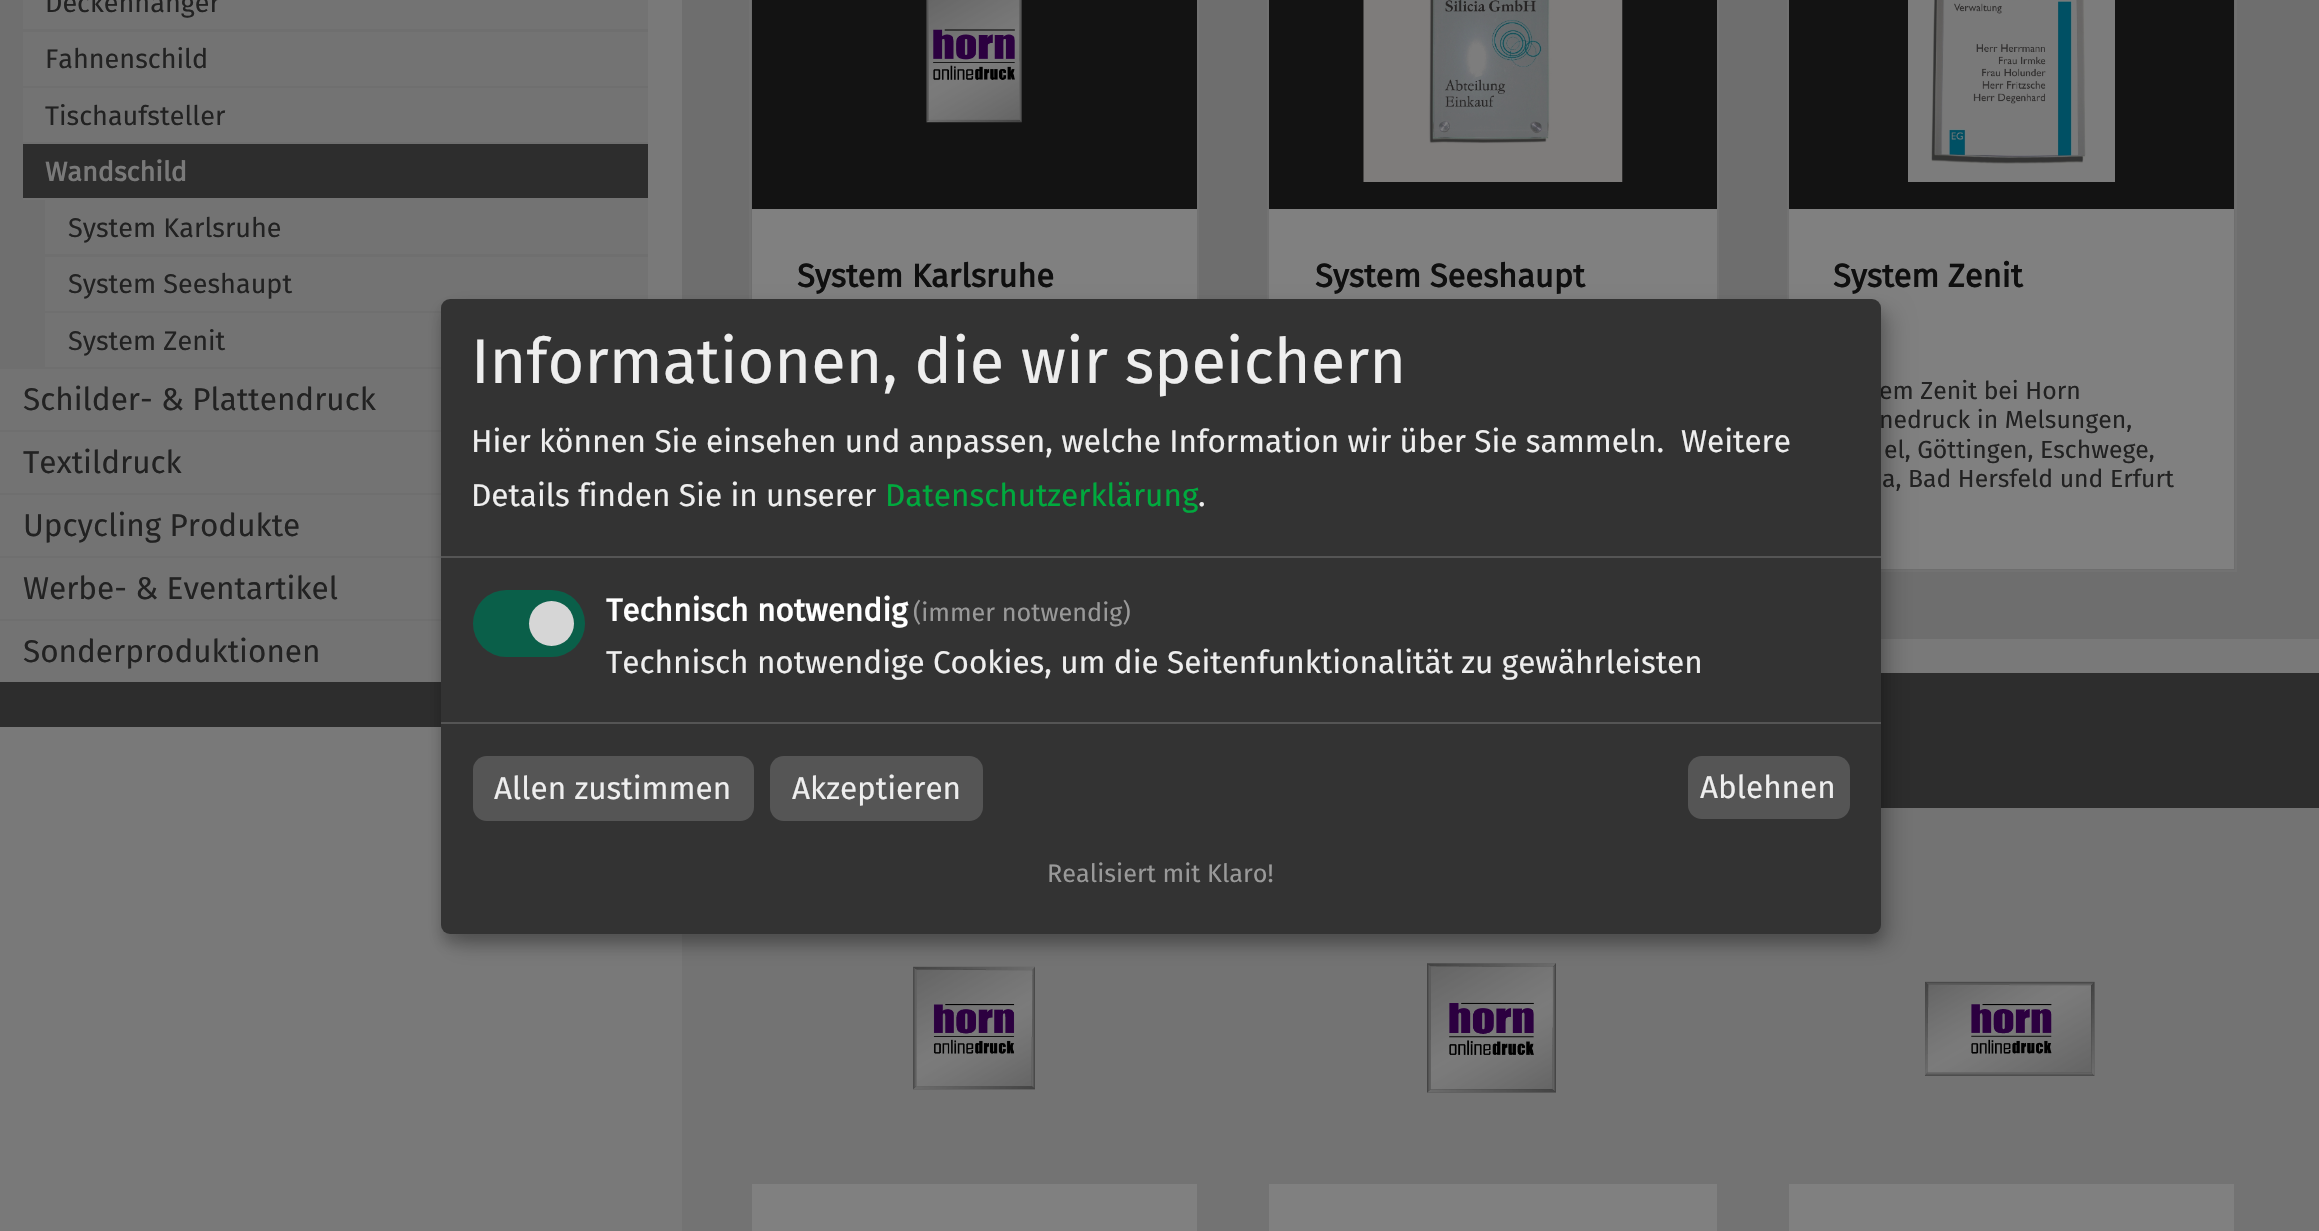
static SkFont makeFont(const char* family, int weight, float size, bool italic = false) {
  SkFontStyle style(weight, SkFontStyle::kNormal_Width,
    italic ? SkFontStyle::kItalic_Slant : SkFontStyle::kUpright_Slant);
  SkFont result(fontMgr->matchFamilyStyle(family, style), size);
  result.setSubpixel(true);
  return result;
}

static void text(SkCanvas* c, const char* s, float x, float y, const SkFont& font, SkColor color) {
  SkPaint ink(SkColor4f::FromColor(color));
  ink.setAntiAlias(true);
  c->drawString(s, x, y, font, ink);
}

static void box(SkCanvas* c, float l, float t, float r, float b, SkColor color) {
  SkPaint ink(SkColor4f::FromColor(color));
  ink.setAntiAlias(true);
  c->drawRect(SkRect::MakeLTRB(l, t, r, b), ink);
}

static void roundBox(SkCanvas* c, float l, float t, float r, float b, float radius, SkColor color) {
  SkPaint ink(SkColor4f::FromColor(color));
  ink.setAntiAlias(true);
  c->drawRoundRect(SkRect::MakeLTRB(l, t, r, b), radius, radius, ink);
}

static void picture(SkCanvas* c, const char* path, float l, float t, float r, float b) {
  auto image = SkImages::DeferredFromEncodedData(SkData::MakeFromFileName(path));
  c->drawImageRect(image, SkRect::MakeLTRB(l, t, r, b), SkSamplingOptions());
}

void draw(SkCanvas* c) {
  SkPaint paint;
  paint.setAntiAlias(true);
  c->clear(0xff797979);
  box(c, 0, 682, 441, 727, 0xff2d2d2d);
  box(c, 0, 367, 441, 621, 0xff6f6f6f);
  box(c, 0, 0, 648, 367, 0xff6f6f6f);
  box(c, 23, 0, 648, 29, 0xff737373);
  SkFont face1 = makeFont("Fira Sans", 400, 27);
  text(c, "Deckenhänger", 45, 12, face1, 0xff222222);
  box(c, 23, 32, 648, 86, 0xff737373);
  text(c, "Fahnenschild", 45, 68, face1, 0xff222222);
  box(c, 23, 88, 648, 142, 0xff737373);
  text(c, "Tischaufsteller", 45, 125, face1, 0xff222222);
  box(c, 23, 198, 648, 200, 0xff737373);
  box(c, 23, 144, 648, 198, 0xff2d2d2d);
  SkFont face2 = makeFont("Fira Sans", 700, 27);
  text(c, "Wandschild", 45, 181, face2, 0xff797979);
  box(c, 45, 200, 648, 254, 0xff737373);
  text(c, "System Karlsruhe", 68, 237, face1, 0xff222222);
  box(c, 45, 257, 648, 311, 0xff737373);
  text(c, "System Seeshaupt", 68, 293, face1, 0xff222222);
  box(c, 45, 313, 441, 367, 0xff737373);
  text(c, "System Zenit", 68, 350, face1, 0xff222222);
  box(c, 0, 369, 441, 430, 0xff737373);
  SkFont face3 = makeFont("Fira Sans", 400, 31.5f);
  text(c, "Schilder- & Plattendruck", 23, 410, face3, 0xff222222);
  box(c, 0, 432, 441, 493, 0xff737373);
  text(c, "Textildruck", 23, 473, face3, 0xff222222);
  box(c, 0, 495, 441, 556, 0xff737373);
  text(c, "Upcycling Produkte", 23, 536, face3, 0xff222222);
  box(c, 0, 558, 441, 619, 0xff737373);
  text(c, "Werbe- & Eventartikel", 23, 599, face3, 0xff222222);
  box(c, 0, 621, 441, 682, 0xff737373);
  text(c, "Sonderproduktionen", 23, 662, face3, 0xff222222);
  box(c, 682, 0, 2319, 639, 0xff6e6e6e);
  paint.setStyle(SkPaint::kStroke_Style);
  paint.setStrokeWidth(2);
  paint.setColor(0xff727272);
  c->drawRect(SkRect::MakeLTRB(750, -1, 1198, 571), paint);
  box(c, 752, 209, 1197, 299, 0xff808080);
  box(c, 752, 0, 1197, 209, 0xff131313);
  picture(c, "img_01.png", 926, 0, 1022, 123);
  SkFont face4 = makeFont("Fira Sans", 700, 32.5f);
  text(c, "System Karlsruhe", 797, 287, face4, 0xff0f0f0f);
  c->drawRect(SkRect::MakeLTRB(1268, -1, 1718, 571), paint);
  box(c, 1269, 209, 1717, 299, 0xff808080);
  box(c, 1269, 0, 1717, 209, 0xff131313);
  picture(c, "img_02.png", 1363, 0, 1623, 182);
  text(c, "System Seeshaupt", 1315, 287, face4, 0xff0f0f0f);
  c->drawRect(SkRect::MakeLTRB(1788, -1, 2236, 571), paint);
  box(c, 1789, 209, 2234, 569, 0xff808080);
  box(c, 1789, 0, 2234, 209, 0xff131313);
  picture(c, "img_03.png", 1908, 0, 2115, 182);
  text(c, "System Zenit", 1833, 287, face4, 0xff0f0f0f);
  SkFont face5 = makeFont("Fira Sans", 400, 24.75f);
  text(c, "em Zenit bei Horn", 1879, 399, face5, 0xff222222);
  text(c, "nedruck in Melsungen,", 1879, 428, face5, 0xff222222);
  text(c, "el, Göttingen, Eschwege,", 1884, 458, face5, 0xff222222);
  text(c, "a, Bad Hersfeld und Erfurt", 1882, 487, face5, 0xff222222);
  box(c, 1881, 673, 2319, 808, 0xff2d2d2d);
  box(c, 682, 808, 2319, 1231, 0xff737373);
  box(c, 752, 1184, 1197, 1231, 0xff808080);
  picture(c, "img_04.png", 913, 966, 1035, 1090);
  box(c, 1269, 1184, 1717, 1231, 0xff808080);
  picture(c, "img_05.png", 1427, 963, 1556, 1093);
  box(c, 1789, 1184, 2234, 1231, 0xff808080);
  picture(c, "img_06.png", 1925, 981, 2095, 1076);
  paint.setStyle(SkPaint::kFill_Style);
  paint.setColor(0x30000000);
  paint.setMaskFilter(SkMaskFilter::MakeBlur(kNormal_SkBlurStyle, 11));
  c->drawRoundRect(SkRect::MakeLTRB(452, 311, 1892, 945), 9, 9, paint);
  paint.setMaskFilter(nullptr);
  paint.setColor(0x33000000);
  paint.setMaskFilter(SkMaskFilter::MakeBlur(kNormal_SkBlurStyle, 7));
  c->drawRoundRect(SkRect::MakeLTRB(441, 308, 1881, 943), 9, 9, paint);
  paint.setMaskFilter(nullptr);
  roundBox(c, 441, 299, 1881, 934, 9, 0xff333333);
  box(c, 441, 556, 1881, 558, 0xff555555);
  SkFont face6 = makeFont("Fira Sans", 400, 63);
  text(c, "Informationen, die wir speichern", 471, 383, face6, 0xffeeeeee);
  text(c, "Hier können Sie einsehen und anpassen, welche Information wir über Sie sammeln.", 471, 452, face3, 0xffeeeeee);
  text(c, "Weitere", 1681, 452, face3, 0xffeeeeee);
  text(c, "Details finden Sie in unserer", 471, 506, face3, 0xffeeeeee);
  text(c, "Datenschutzerklärung", 885, 506, face3, 0xff00aa3e);
  text(c, ".", 1198, 506, face3, 0xffeeeeee);
  roundBox(c, 473, 590, 585, 657, 33.5f, 0xff0a5f49);
  paint.setColor(0xffd6d6d6);
  c->drawCircle(551.5f, 623.5f, 22.5f, paint);
  SkFont face7 = makeFont("Fira Sans", 700, 31.5f);
  text(c, "Technisch notwendig", 606, 621, face7, 0xffffffff);
  SkFont face8 = makeFont("Fira Sans", 400, 25.25f);
  text(c, "(immer notwendig)", 913, 621, face8, 0xff999999);
  text(c, "Technisch notwendige Cookies, um die Seitenfunktionalität zu gewährleisten", 606, 673, face3, 0xffeeeeee);
  box(c, 441, 722, 1881, 724, 0xff555555);
  roundBox(c, 473, 756, 754, 821, 14, 0xff555555);
  text(c, "Allen zustimmen", 494, 799, face3, 0xffeeeeee);
  roundBox(c, 770, 756, 983, 821, 14, 0xff555555);
  text(c, "Akzeptieren", 792, 799, face3, 0xffeeeeee);
  roundBox(c, 1688, 756, 1850, 819, 14, 0xff555555);
  text(c, "Ablehnen", 1700, 798, face3, 0xffeeeeee);
  text(c, "Realisiert mit Klaro!", 1047, 882, face8, 0xff999999);
}
